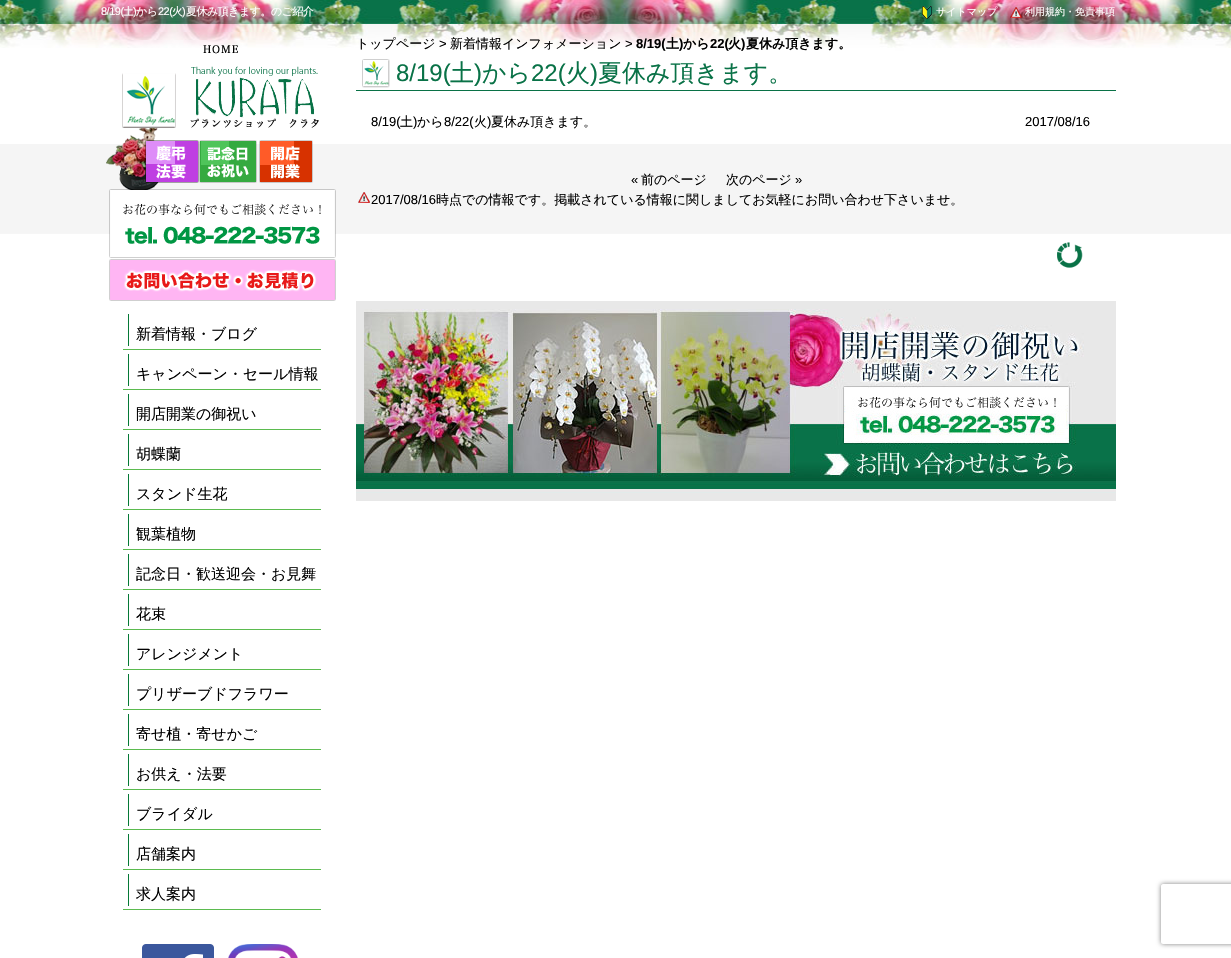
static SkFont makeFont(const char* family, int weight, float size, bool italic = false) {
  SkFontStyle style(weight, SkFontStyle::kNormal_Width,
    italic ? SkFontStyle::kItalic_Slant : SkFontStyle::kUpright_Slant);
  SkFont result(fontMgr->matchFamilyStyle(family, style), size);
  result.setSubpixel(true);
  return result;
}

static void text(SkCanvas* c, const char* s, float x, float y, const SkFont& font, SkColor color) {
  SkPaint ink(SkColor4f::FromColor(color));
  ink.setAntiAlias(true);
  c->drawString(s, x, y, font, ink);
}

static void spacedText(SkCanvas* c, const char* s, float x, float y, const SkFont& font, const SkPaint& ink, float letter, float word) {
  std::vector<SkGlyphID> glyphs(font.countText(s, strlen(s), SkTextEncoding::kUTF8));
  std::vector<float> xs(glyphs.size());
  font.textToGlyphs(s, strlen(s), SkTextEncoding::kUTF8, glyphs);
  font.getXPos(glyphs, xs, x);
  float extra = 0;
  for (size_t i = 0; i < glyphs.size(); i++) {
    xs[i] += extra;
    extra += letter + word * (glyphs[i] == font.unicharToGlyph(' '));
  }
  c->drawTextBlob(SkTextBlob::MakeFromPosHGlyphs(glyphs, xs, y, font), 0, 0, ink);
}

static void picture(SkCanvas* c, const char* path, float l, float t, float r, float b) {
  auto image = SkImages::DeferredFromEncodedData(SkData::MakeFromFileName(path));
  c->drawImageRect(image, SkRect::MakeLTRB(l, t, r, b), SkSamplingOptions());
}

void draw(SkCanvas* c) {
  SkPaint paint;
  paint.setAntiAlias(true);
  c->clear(0xffffffff);
  picture(c, "img_01.png", 0, 0, 1231, 234);
  SkFont face1 = makeFont("Liberation Sans", 400, 11);
  paint.setColor(0xffffffff);
  spacedText(c, "8/19(", 101, 15, face1, paint, -0.5f, 0);
  SkFont face2 = makeFont("WenQuanYi Zen Hei", 500, 11);
  spacedText(c, "土", 123, 15, face2, paint, -0.5f, 0);
  spacedText(c, ")", 133, 15, face1, paint, -0.5f, 0);
  spacedText(c, "から", 136, 15, face2, paint, -0.5f, 0);
  spacedText(c, "22(", 158, 15, face1, paint, -0.5f, 0);
  spacedText(c, "火", 172, 15, face2, paint, -0.5f, 0);
  spacedText(c, ")", 182, 15, face1, paint, -0.5f, 0);
  spacedText(c, "夏休み頂きます。のご紹介", 186, 15, face2, paint, -0.5f, 0);
  picture(c, "img_02.png", 922, 6, 932, 19);
  SkFont face3 = makeFont("WenQuanYi Zen Hei", 500, 10);
  text(c, "サイトマップ", 936, 15, face3, 0xffffffff);
  picture(c, "img_03.png", 1010, 7, 1022, 18);
  text(c, "利用規約・免責事項", 1025, 15, face3, 0xffffffff);
  SkFont face4 = makeFont("WenQuanYi Zen Hei", 500, 13);
  text(c, "トップページ", 356, 48, face4, 0xff000000);
  SkFont face5 = makeFont("Liberation Sans", 400, 13);
  text(c, ">", 439, 48, face5, 0xff000000);
  text(c, "新着情報インフォメーション", 450, 48, face4, 0xff000000);
  text(c, ">", 625, 48, face5, 0xff000000);
  SkFont face6 = makeFont("Liberation Sans", 700, 13);
  text(c, "8/19(", 636, 48, face6, 0xff000000);
  SkFont face7 = makeFont("WenQuanYi Zen Hei", 700, 13);
  text(c, "土", 666, 48, face7, 0xff000000);
  text(c, ")", 679, 48, face6, 0xff000000);
  text(c, "から", 683, 48, face7, 0xff000000);
  text(c, "22(", 710, 48, face6, 0xff000000);
  text(c, "火", 728, 48, face7, 0xff000000);
  text(c, ")", 741, 48, face6, 0xff000000);
  text(c, "夏休み頂きます。", 746, 48, face7, 0xff000000);
  picture(c, "img_04.png", 356, 59, 1116, 91);
  SkFont face8 = makeFont("Liberation Sans", 400, 24);
  text(c, "8/19(", 396, 81, face8, 0xff097247);
  SkFont face9 = makeFont("WenQuanYi Zen Hei", 500, 24);
  text(c, "土", 450, 81, face9, 0xff097247);
  text(c, ")", 474, 81, face8, 0xff097247);
  text(c, "から", 482, 81, face9, 0xff097247);
  text(c, "22(", 531, 81, face8, 0xff097247);
  text(c, "火", 566, 81, face9, 0xff097247);
  text(c, ")", 590, 81, face8, 0xff097247);
  text(c, "夏休み頂きます。", 598, 81, face9, 0xff097247);
  text(c, "8/19(", 371, 126, face5, 0xff000000);
  text(c, "土", 400, 126, face4, 0xff000000);
  text(c, ")", 413, 126, face5, 0xff000000);
  text(c, "から", 417, 126, face4, 0xff000000);
  text(c, "8/22(", 444, 126, face5, 0xff000000);
  text(c, "火", 474, 126, face4, 0xff000000);
  text(c, ")", 487, 126, face5, 0xff000000);
  text(c, "夏休み頂きます。", 491, 126, face4, 0xff000000);
  text(c, "2017/08/16", 1025, 126, face5, 0xff000000);
  text(c, "«", 631, 184, face5, 0xff000000);
  text(c, "前のページ", 641, 184, face4, 0xff000000);
  text(c, "次のページ", 726, 184, face4, 0xff000000);
  text(c, "»", 795, 184, face5, 0xff000000);
  picture(c, "img_05.png", 358, 192, 370, 203);
  text(c, "2017/08/16", 371, 204, face5, 0xff000000);
  text(c, "時点での情報です。掲載されている情報に関しましてお気軽にお問い合わせ下さいませ。", 436, 204, face4, 0xff000000);
  picture(c, "img_06.png", 1057, 242, 1083, 268);
  picture(c, "img_07.png", 356, 301, 1116, 501);
  picture(c, "img_08.png", 203, 45, 238, 54);
  picture(c, "img_09.png", 106, 66, 336, 301);
  picture(c, "img_10.png", 123, 314, 321, 350);
  SkFont face10 = makeFont("WenQuanYi Zen Hei", 500, 15);
  text(c, "新着情報・ブログ", 136, 339, face10, 0xff000000);
  picture(c, "img_10.png", 123, 354, 321, 390);
  text(c, "キャンペーン・セール情報", 136, 379, face10, 0xff000000);
  picture(c, "img_10.png", 123, 394, 321, 430);
  text(c, "開店開業の御祝い", 136, 419, face10, 0xff000000);
  picture(c, "img_10.png", 123, 434, 321, 470);
  text(c, "胡蝶蘭", 136, 459, face10, 0xff000000);
  picture(c, "img_10.png", 123, 474, 321, 510);
  text(c, "スタンド生花", 136, 499, face10, 0xff000000);
  picture(c, "img_10.png", 123, 514, 321, 550);
  text(c, "観葉植物", 136, 539, face10, 0xff000000);
  picture(c, "img_10.png", 123, 554, 321, 590);
  text(c, "記念日・歓送迎会・お見舞", 136, 579, face10, 0xff000000);
  picture(c, "img_10.png", 123, 594, 321, 630);
  text(c, "花束", 136, 619, face10, 0xff000000);
  picture(c, "img_10.png", 123, 634, 321, 670);
  text(c, "アレンジメント", 136, 659, face10, 0xff000000);
  picture(c, "img_10.png", 123, 674, 321, 710);
  text(c, "プリザーブドフラワー", 136, 699, face10, 0xff000000);
  picture(c, "img_10.png", 123, 714, 321, 750);
  text(c, "寄せ植・寄せかご", 136, 739, face10, 0xff000000);
  picture(c, "img_10.png", 123, 754, 321, 790);
  text(c, "お供え・法要", 136, 779, face10, 0xff000000);
  picture(c, "img_10.png", 123, 794, 321, 830);
  text(c, "ブライダル", 136, 819, face10, 0xff000000);
  picture(c, "img_10.png", 123, 834, 321, 870);
  text(c, "店舗案内", 136, 859, face10, 0xff000000);
  picture(c, "img_10.png", 123, 874, 321, 910);
  text(c, "求人案内", 136, 899, face10, 0xff000000);
  picture(c, "img_11.png", 142, 944, 214, 958);
  picture(c, "img_12.png", 228, 944, 298, 958);
  c->save();
  c->clipPath(SkPathBuilder(SkPathFillType::kEvenOdd).moveTo(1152, 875).lineTo(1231, 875).lineTo(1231, 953).lineTo(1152, 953).close().moveTo(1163, 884).lineTo(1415, 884).cubicTo(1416, 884, 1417, 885, 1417, 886).lineTo(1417, 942).cubicTo(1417, 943, 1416, 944, 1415, 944).lineTo(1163, 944).cubicTo(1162, 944, 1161, 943, 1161, 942).lineTo(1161, 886).cubicTo(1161, 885, 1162, 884, 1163, 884).close().detach(), true);
  paint.setColor(0xff808080);
  paint.setMaskFilter(SkMaskFilter::MakeBlur(kNormal_SkBlurStyle, 2.5f));
  c->drawRoundRect(SkRect::MakeLTRB(1161, 884, 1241, 944), 2, 2, paint);
  paint.setMaskFilter(nullptr);
  c->restore();
}
